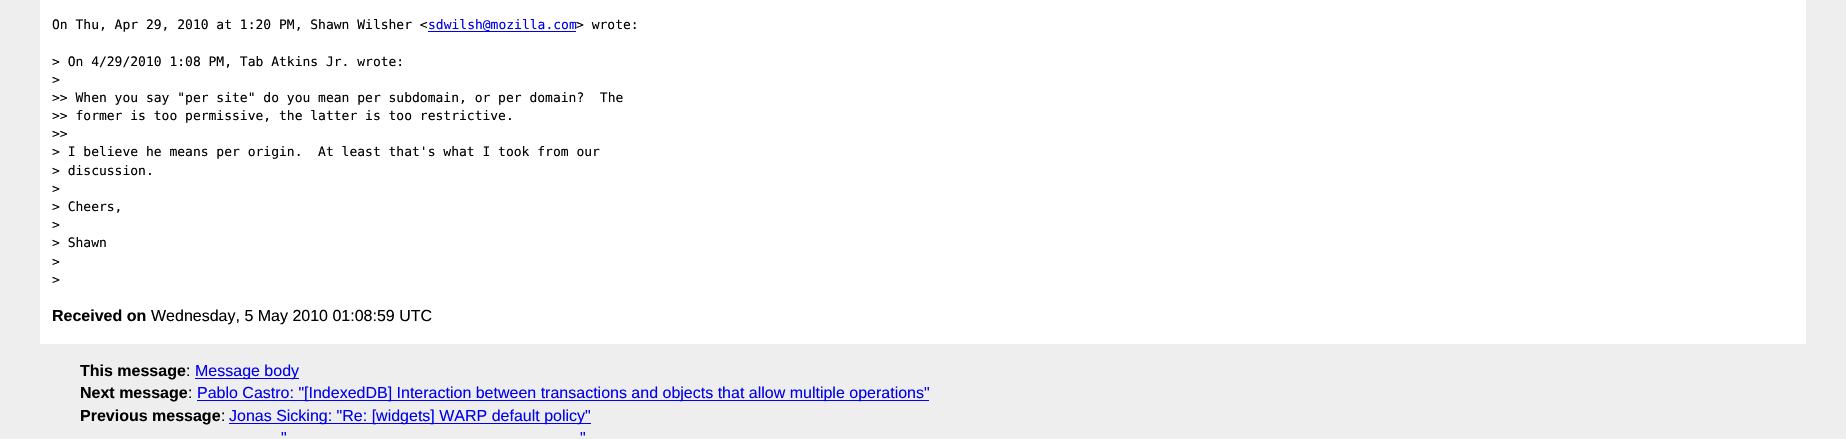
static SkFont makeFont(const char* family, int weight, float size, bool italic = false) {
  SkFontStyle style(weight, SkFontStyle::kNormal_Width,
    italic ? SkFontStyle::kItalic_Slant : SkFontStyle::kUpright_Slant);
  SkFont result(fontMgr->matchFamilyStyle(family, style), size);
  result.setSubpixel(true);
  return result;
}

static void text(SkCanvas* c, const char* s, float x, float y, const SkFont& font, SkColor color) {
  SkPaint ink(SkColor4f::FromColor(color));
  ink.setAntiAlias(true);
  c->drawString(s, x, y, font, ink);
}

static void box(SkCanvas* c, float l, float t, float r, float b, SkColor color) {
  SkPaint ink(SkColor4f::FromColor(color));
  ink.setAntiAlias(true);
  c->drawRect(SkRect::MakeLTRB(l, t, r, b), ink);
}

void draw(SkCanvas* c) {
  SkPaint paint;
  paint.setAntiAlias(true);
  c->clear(0xffeeeeee);
  box(c, 40, 0, 1806, 344, 0xffffffff);
  SkFont face1 = makeFont("DejaVu Sans Mono", 400, 13);
  text(c, "On Thu, Apr 29, 2010 at 1:20 PM, Shawn Wilsher <", 52, 29, face1, 0xff000000);
  text(c, "sdwilsh@mozilla.com", 428, 29, face1, 0xff0000ee);
  box(c, 428, 31, 576, 32, 0xff0000ee);
  text(c, "> wrote:", 576, 29, face1, 0xff000000);
  text(c, "> On 4/29/2010 1:08 PM, Tab Atkins Jr. wrote:", 52, 66, face1, 0xff000000);
  text(c, ">", 52, 84, face1, 0xff000000);
  text(c, ">> When you say \"per site\" do you mean per subdomain, or per domain?  The", 52, 102, face1, 0xff000000);
  text(c, ">> former is too permissive, the latter is too restrictive.", 52, 120, face1, 0xff000000);
  text(c, ">>", 52, 138, face1, 0xff000000);
  text(c, "> I believe he means per origin.  At least that's what I took from our", 52, 156, face1, 0xff000000);
  text(c, "> discussion.", 52, 175, face1, 0xff000000);
  text(c, ">", 52, 193, face1, 0xff000000);
  text(c, "> Cheers,", 52, 211, face1, 0xff000000);
  text(c, ">", 52, 229, face1, 0xff000000);
  text(c, "> Shawn", 52, 247, face1, 0xff000000);
  text(c, ">", 52, 266, face1, 0xff000000);
  text(c, ">", 52, 284, face1, 0xff000000);
  SkFont face2 = makeFont("Liberation Sans", 700, 16);
  text(c, "Received on", 52, 321, face2, 0xff000000);
  SkFont face3 = makeFont("Liberation Sans", 400, 16);
  text(c, "Wednesday, 5 May 2010 01:08:59 UTC", 151, 321, face3, 0xff000000);
  text(c, "This message", 80, 376, face2, 0xff000000);
  text(c, ":", 186, 376, face3, 0xff000000);
  box(c, 195, 378, 299, 379, 0xff0000ee);
  text(c, "Message body", 195, 376, face3, 0xff0000ee);
  text(c, "Next message", 80, 398, face2, 0xff000000);
  text(c, ":", 188, 398, face3, 0xff000000);
  box(c, 197, 400, 929, 401, 0xff0000ee);
  text(c, "Pablo Castro: \"[IndexedDB] Interaction between transactions and objects that allow multiple operations\"", 197, 398, face3, 0xff0000ee);
  text(c, "Previous message", 80, 421, face2, 0xff000000);
  text(c, ":", 221, 421, face3, 0xff000000);
  box(c, 229, 423, 591, 424, 0xff0000ee);
  text(c, "Jonas Sicking: \"Re: [widgets] WARP default policy\"", 229, 421, face3, 0xff0000ee);
  text(c, "\"", 281, 443, face3, 0xff0000ee);
  text(c, "\"", 580, 443, face3, 0xff0000ee);
}
